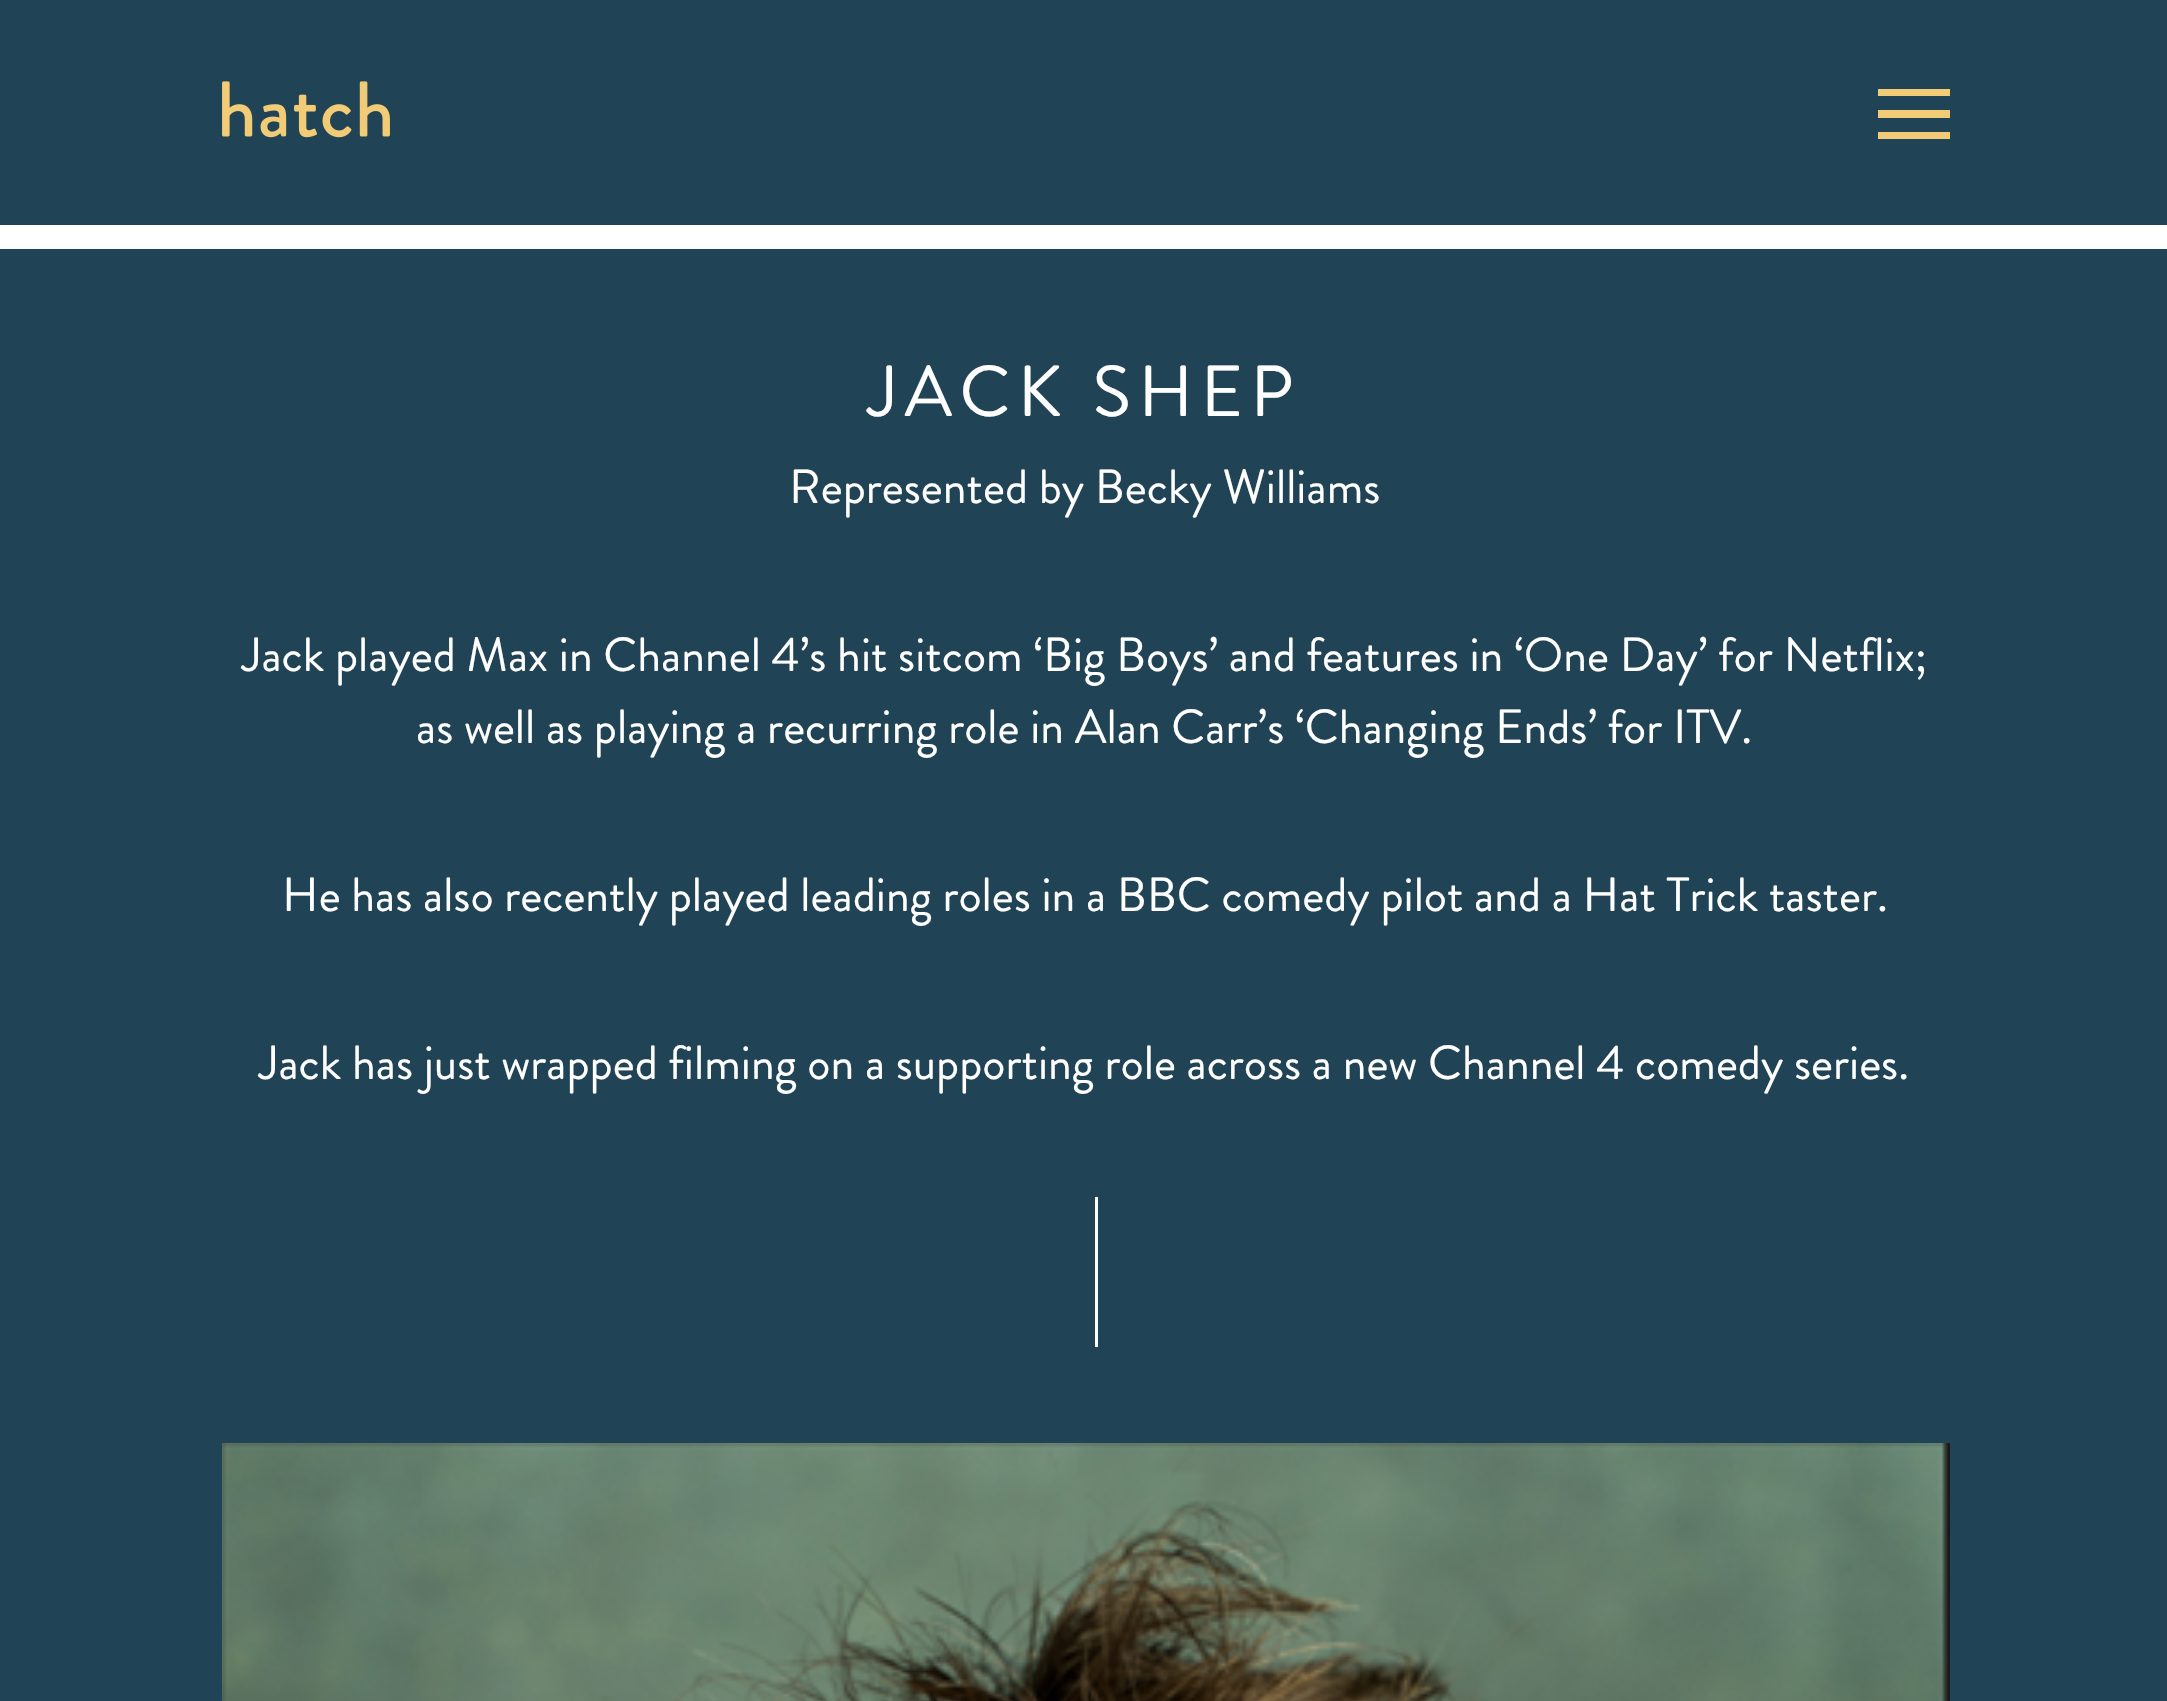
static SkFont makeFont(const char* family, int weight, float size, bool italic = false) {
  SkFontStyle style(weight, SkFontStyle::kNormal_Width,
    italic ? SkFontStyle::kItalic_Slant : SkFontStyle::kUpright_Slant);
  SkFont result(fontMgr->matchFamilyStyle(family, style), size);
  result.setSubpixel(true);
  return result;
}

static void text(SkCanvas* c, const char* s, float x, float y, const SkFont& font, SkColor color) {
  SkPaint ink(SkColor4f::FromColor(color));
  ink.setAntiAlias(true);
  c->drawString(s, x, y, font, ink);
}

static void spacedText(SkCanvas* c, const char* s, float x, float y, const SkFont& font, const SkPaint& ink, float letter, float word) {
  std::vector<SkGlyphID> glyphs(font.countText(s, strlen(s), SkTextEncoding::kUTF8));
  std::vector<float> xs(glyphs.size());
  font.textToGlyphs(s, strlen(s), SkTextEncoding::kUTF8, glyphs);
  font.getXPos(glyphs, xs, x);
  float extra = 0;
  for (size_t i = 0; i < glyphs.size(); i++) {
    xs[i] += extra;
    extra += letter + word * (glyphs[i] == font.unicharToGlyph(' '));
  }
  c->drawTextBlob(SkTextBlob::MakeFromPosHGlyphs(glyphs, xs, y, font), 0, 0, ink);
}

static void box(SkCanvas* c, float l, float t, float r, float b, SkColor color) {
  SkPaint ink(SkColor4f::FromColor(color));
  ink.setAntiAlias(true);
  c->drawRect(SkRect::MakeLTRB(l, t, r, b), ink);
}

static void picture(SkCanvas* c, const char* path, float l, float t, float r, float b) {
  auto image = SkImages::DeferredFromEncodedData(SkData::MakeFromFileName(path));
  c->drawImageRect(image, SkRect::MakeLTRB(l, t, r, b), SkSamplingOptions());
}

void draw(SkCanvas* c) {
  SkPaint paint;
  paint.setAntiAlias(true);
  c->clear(0xff204456);
  picture(c, "img_01.png", 222, 81, 390, 138);
  paint.setColor(0xfff1cb75);
  c->drawPath(SkPathBuilder(SkPathFillType::kEvenOdd).moveTo(1878, 89).lineTo(1950, 89).lineTo(1950, 96).lineTo(1878, 96).close().moveTo(1878, 110).lineTo(1950, 110).lineTo(1950, 118).lineTo(1878, 118).close().moveTo(1878, 132).lineTo(1950, 132).lineTo(1950, 139).lineTo(1878, 139).close().detach(), paint);
  box(c, 0, 225, 2167, 249, 0xffffffff);
  SkFont face1 = makeFont("Brandon Grotesque", 400, 72);
  paint.setColor(0xffffffff);
  spacedText(c, "JACK SHEP", 868, 416, face1, paint, 7.25f, 0);
  SkFont face2 = makeFont("Brandon Grotesque", 400, 48);
  text(c, "Represented by Becky Williams", 789, 503, face2, 0xffffffff);
  text(c, "Jack played Max in Channel 4’s hit sitcom ‘Big Boys’ and features in ‘One Day’ for Netflix;", 242, 671, face2, 0xffffffff);
  text(c, "as well as playing a recurring role in Alan Carr’s ‘Changing Ends’ for ITV.", 416, 743, face2, 0xffffffff);
  text(c, "He has also recently played leading roles in a BBC comedy pilot and a Hat Trick taster.", 282, 911, face2, 0xffffffff);
  text(c, "Jack has just wrapped filming on a supporting role across a new Channel 4 comedy series.", 259, 1079, face2, 0xffffffff);
  box(c, 1095, 1197, 1098, 1347, 0xffffffff);
  picture(c, "img_02.png", 222, 1443, 1950, 1701);
}
